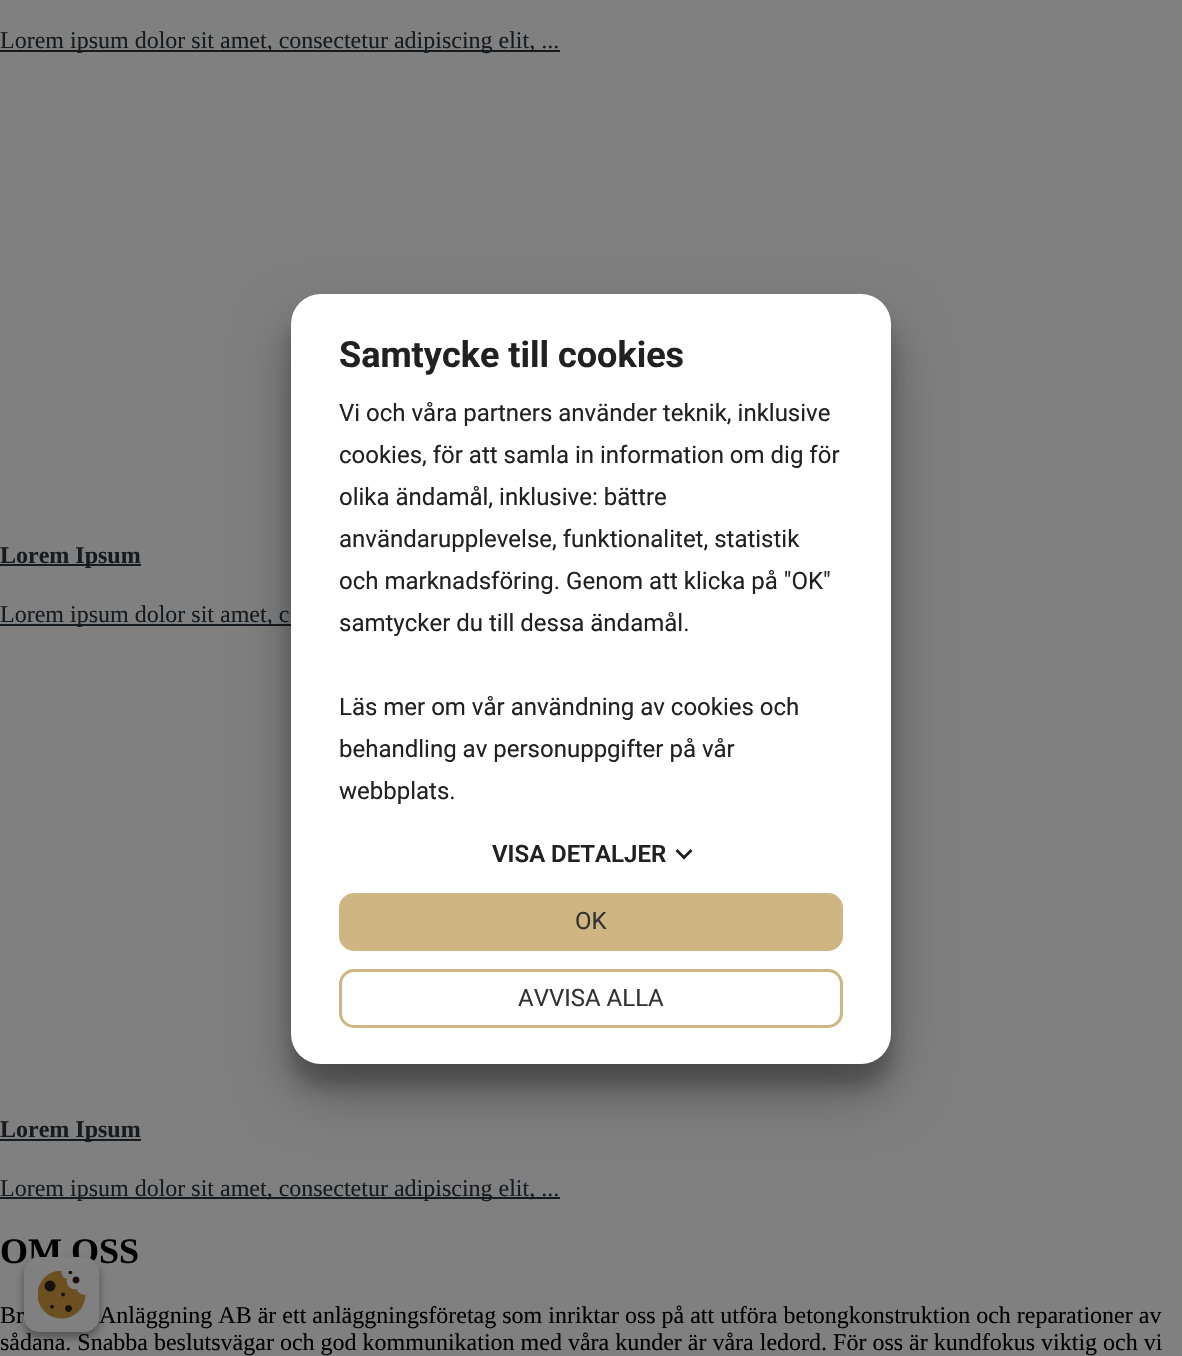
static SkFont makeFont(const char* family, int weight, float size, bool italic = false) {
  SkFontStyle style(weight, SkFontStyle::kNormal_Width,
    italic ? SkFontStyle::kItalic_Slant : SkFontStyle::kUpright_Slant);
  SkFont result(fontMgr->matchFamilyStyle(family, style), size);
  result.setSubpixel(true);
  return result;
}

static void text(SkCanvas* c, const char* s, float x, float y, const SkFont& font, SkColor color) {
  SkPaint ink(SkColor4f::FromColor(color));
  ink.setAntiAlias(true);
  c->drawString(s, x, y, font, ink);
}

static void box(SkCanvas* c, float l, float t, float r, float b, SkColor color) {
  SkPaint ink(SkColor4f::FromColor(color));
  ink.setAntiAlias(true);
  c->drawRect(SkRect::MakeLTRB(l, t, r, b), ink);
}

static void roundBox(SkCanvas* c, float l, float t, float r, float b, float radius, SkColor color) {
  SkPaint ink(SkColor4f::FromColor(color));
  ink.setAntiAlias(true);
  c->drawRoundRect(SkRect::MakeLTRB(l, t, r, b), radius, radius, ink);
}

static void picture(SkCanvas* c, const char* path, float l, float t, float r, float b) {
  auto image = SkImages::DeferredFromEncodedData(SkData::MakeFromFileName(path));
  c->drawImageRect(image, SkRect::MakeLTRB(l, t, r, b), SkSamplingOptions());
}

void draw(SkCanvas* c) {
  SkPaint paint;
  paint.setAntiAlias(true);
  c->clear(0xff808080);
  box(c, 0, 50, 560, 52, 0xff161b20);
  SkFont face1 = makeFont("Liberation Serif", 400, 24);
  text(c, "Lorem ipsum dolor sit amet, consectetur adipiscing elit, ...", 0, 48, face1, 0xff161b20);
  box(c, 0, 564, 141, 566, 0xff161b20);
  SkFont face2 = makeFont("Liberation Serif", 700, 24);
  text(c, "Lorem Ipsum", 0, 563, face2, 0xff161b20);
  box(c, 0, 624, 291, 626, 0xff161b20);
  text(c, "Lorem ipsum dolor sit amet, c", 0, 622, face1, 0xff161b20);
  box(c, 0, 1139, 141, 1141, 0xff161b20);
  text(c, "Lorem Ipsum", 0, 1137, face2, 0xff161b20);
  box(c, 0, 1197, 560, 1199, 0xff161b20);
  text(c, "Lorem ipsum dolor sit amet, consectetur adipiscing elit, ...", 0, 1196, face1, 0xff161b20);
  SkFont face3 = makeFont("Liberation Serif", 700, 36);
  text(c, "OM OSS", 0, 1263, face3, 0xff000000);
  text(c, "Br", 0, 1323, face1, 0xff000000);
  text(c, "Anläggning AB är ett anläggningsföretag som inriktar oss på att utföra betongkonstruktion och reparationer av", 99, 1323, face1, 0xff000000);
  text(c, "sådana. Snabba beslutsvägar och god kommunikation med våra kunder är våra ledord. För oss är kundfokus viktig och vi", 0, 1350, face1, 0xff000000);
  paint.setColor(0x38000000);
  paint.setMaskFilter(SkMaskFilter::MakeBlur(kNormal_SkBlurStyle, 9));
  c->drawRoundRect(SkRect::MakeLTRB(291, 317, 891, 1086), 30, 30, paint);
  paint.setMaskFilter(nullptr);
  paint.setColor(0x4d000000);
  paint.setMaskFilter(SkMaskFilter::MakeBlur(kNormal_SkBlurStyle, 28.5f));
  c->drawRoundRect(SkRect::MakeLTRB(291, 323, 891, 1092), 30, 30, paint);
  paint.setMaskFilter(nullptr);
  roundBox(c, 291, 294, 891, 1064, 30, 0xffffffff);
  SkFont face4 = makeFont("Roboto", 700, 36);
  text(c, "Samtycke till cookies", 339, 367, face4, 0xff212121);
  SkFont face5 = makeFont("Roboto", 400, 24);
  text(c, "Vi och våra partners använder teknik, inklusive", 339, 421, face5, 0xff212121);
  text(c, "cookies, för att samla in information om dig för", 339, 463, face5, 0xff212121);
  text(c, "olika ändamål, inklusive: bättre", 339, 505, face5, 0xff212121);
  text(c, "användarupplevelse, funktionalitet, statistik", 339, 547, face5, 0xff212121);
  text(c, "och marknadsföring. Genom att klicka på \"OK\"", 339, 589, face5, 0xff212121);
  text(c, "samtycker du till dessa ändamål.", 339, 631, face5, 0xff212121);
  text(c, "Läs mer om vår användning av cookies och", 339, 715, face5, 0xff212121);
  text(c, "behandling av personuppgifter på vår", 339, 757, face5, 0xff212121);
  text(c, "webbplats.", 339, 799, face5, 0xff212121);
  SkFont face6 = makeFont("Roboto", 600, 24);
  text(c, "VISA DETALJER", 492, 862, face6, 0xff212121);
  paint.setColor(0xff212121);
  c->drawPath(SkPathBuilder().moveTo(690.5f, 849).lineTo(692.5f, 851).lineTo(684, 859.5f).lineTo(682, 857.5f).close().detach(), paint);
  c->drawPath(SkPathBuilder().moveTo(677.5f, 849).lineTo(686, 857.5f).lineTo(684, 859.5f).lineTo(675.5f, 851).close().detach(), paint);
  paint.setColor(0xffceb582);
  c->drawRoundRect(SkRect::MakeLTRB(340.5f, 894.5f, 841.5f, 949.5f), 13.5f, 13.5f, paint);
  paint.setStyle(SkPaint::kStroke_Style);
  paint.setStrokeWidth(3);
  c->drawRoundRect(SkRect::MakeLTRB(340.5f, 894.5f, 841.5f, 949.5f), 13.5f, 13.5f, paint);
  text(c, "OK", 575, 929, face5, 0xff333333);
  c->drawRoundRect(SkRect::MakeLTRB(340.5f, 970.5f, 841.5f, 1026.5f), 13.5f, 13.5f, paint);
  text(c, "AVVISA ALLA", 518, 1006, face5, 0xff333333);
  paint.setStyle(SkPaint::kFill_Style);
  paint.setColor(0x3b000000);
  paint.setMaskFilter(SkMaskFilter::MakeBlur(kNormal_SkBlurStyle, 4.5f));
  c->drawRoundRect(SkRect::MakeLTRB(24, 1262, 99, 1337), 15, 15, paint);
  paint.setMaskFilter(nullptr);
  paint.setColor(0x29000000);
  paint.setMaskFilter(SkMaskFilter::MakeBlur(kNormal_SkBlurStyle, 4.5f));
  c->drawRoundRect(SkRect::MakeLTRB(24, 1262, 99, 1337), 15, 15, paint);
  paint.setMaskFilter(nullptr);
  roundBox(c, 24, 1257, 99, 1332, 15, 0xff808080);
  picture(c, "img_01.png", 38, 1271, 86, 1319);
}
